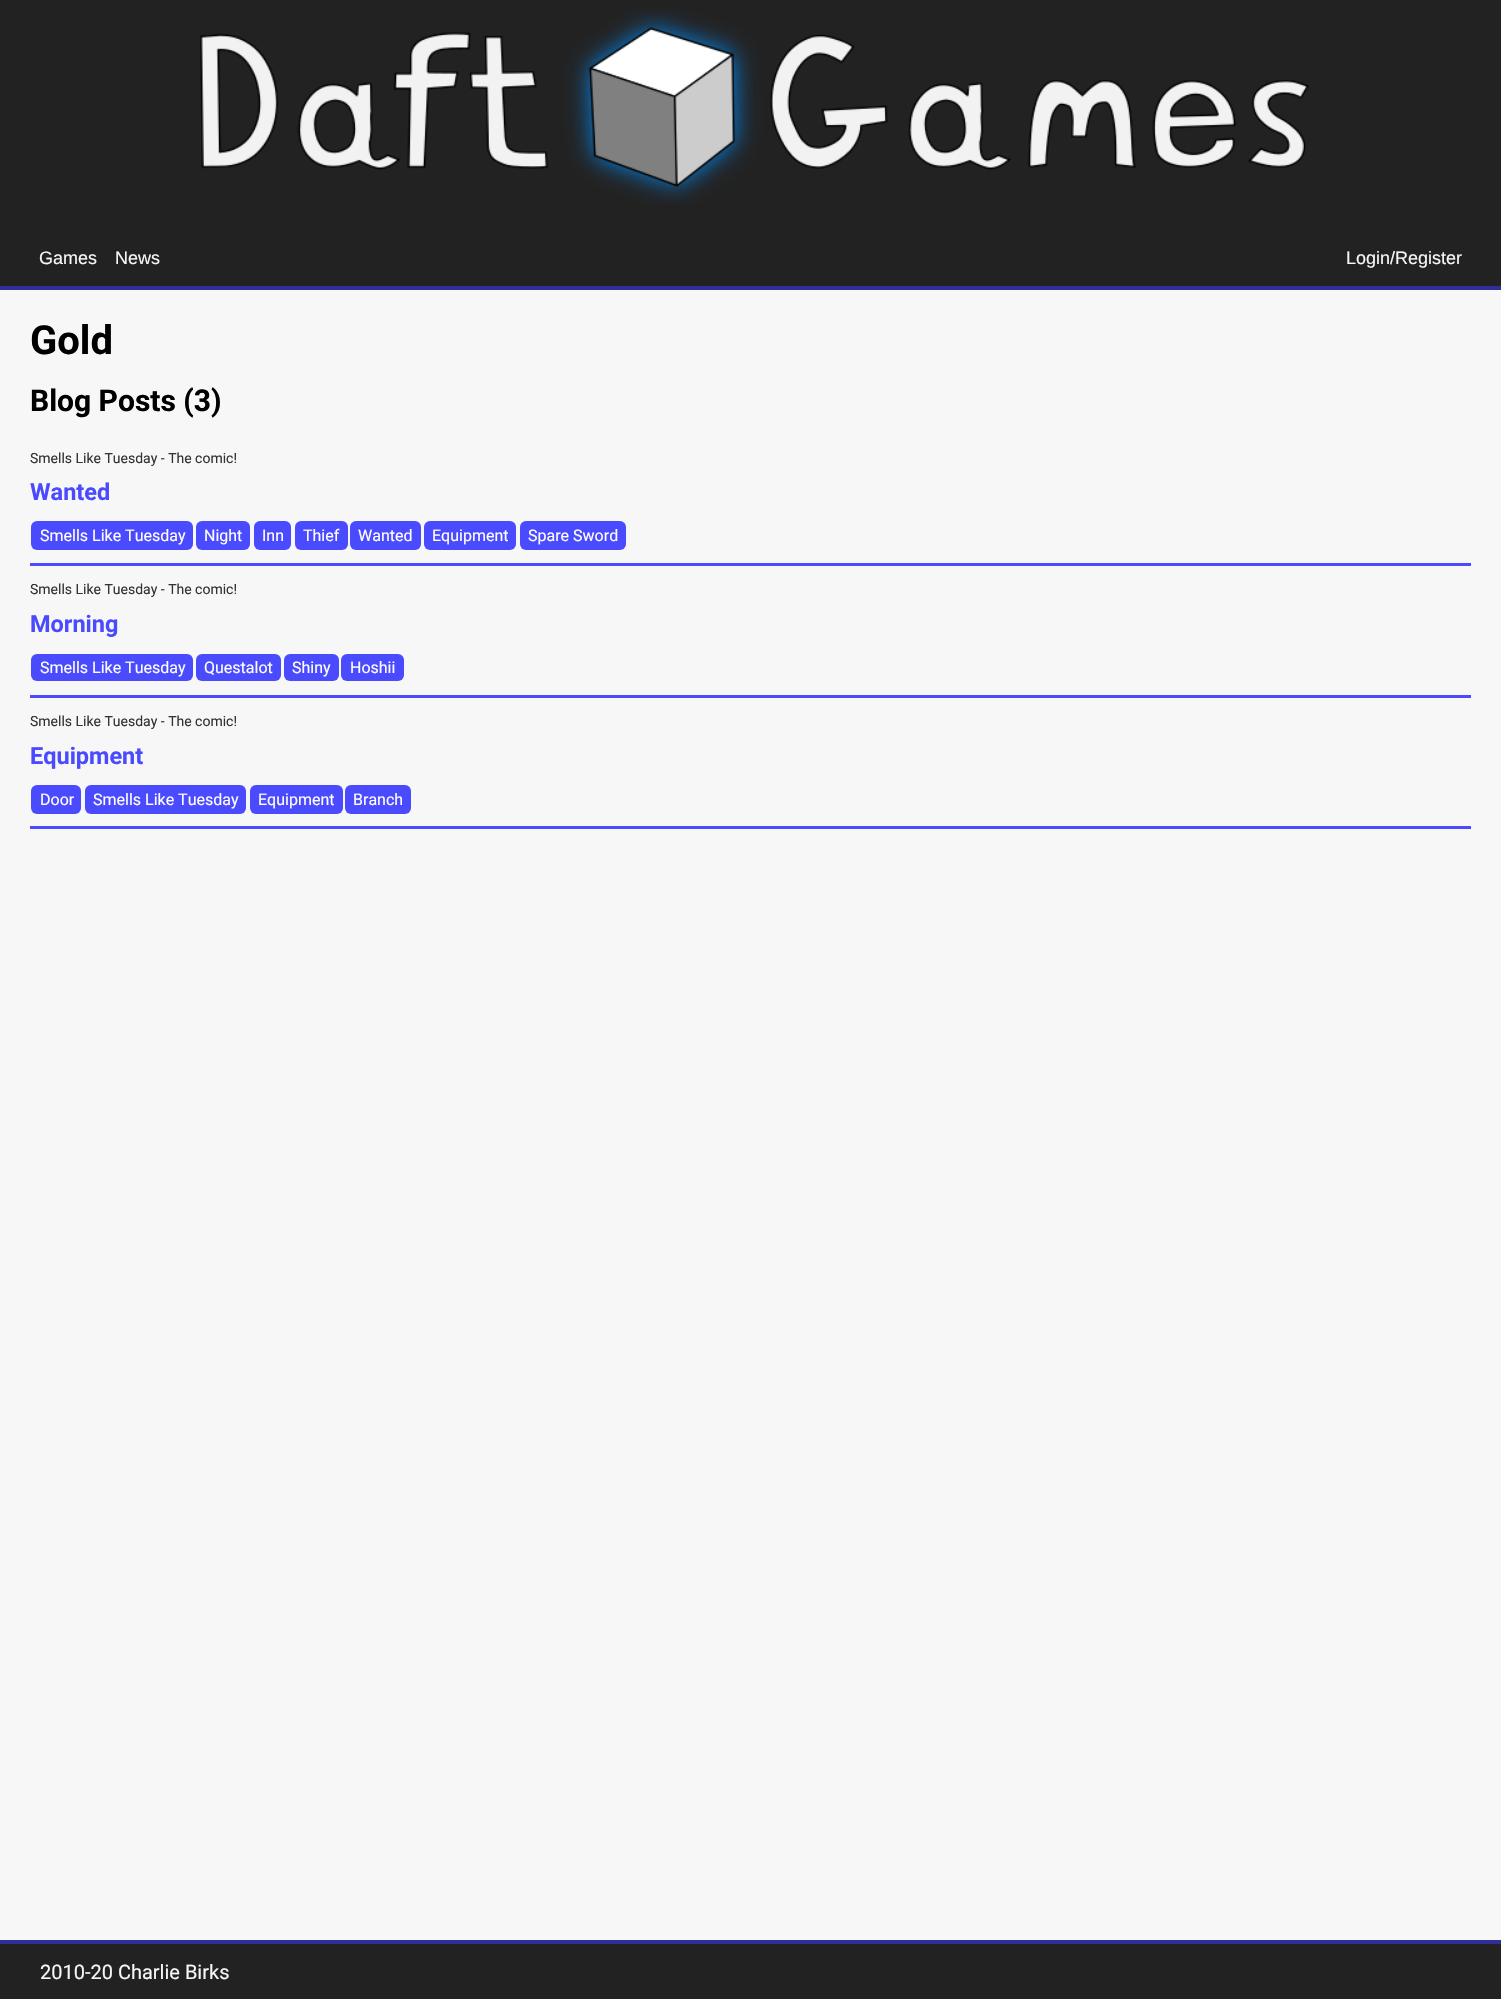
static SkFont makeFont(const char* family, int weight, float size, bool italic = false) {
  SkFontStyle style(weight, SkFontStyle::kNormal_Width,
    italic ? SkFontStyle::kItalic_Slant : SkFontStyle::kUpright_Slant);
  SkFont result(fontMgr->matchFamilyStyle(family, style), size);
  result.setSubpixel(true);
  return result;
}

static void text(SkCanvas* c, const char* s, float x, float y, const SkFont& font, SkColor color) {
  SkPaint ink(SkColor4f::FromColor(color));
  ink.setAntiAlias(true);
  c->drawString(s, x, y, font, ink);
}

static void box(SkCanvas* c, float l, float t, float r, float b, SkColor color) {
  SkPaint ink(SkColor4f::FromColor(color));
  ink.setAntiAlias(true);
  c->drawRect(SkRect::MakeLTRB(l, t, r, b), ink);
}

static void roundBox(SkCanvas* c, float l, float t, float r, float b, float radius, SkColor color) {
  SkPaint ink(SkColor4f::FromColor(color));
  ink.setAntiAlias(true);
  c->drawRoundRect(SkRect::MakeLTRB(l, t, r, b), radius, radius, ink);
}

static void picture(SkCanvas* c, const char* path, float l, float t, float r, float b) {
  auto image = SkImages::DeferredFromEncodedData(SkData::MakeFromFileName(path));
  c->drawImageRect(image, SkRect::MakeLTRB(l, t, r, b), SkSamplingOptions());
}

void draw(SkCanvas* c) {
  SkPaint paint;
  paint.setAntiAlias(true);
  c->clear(0xfff7f7f7);
  box(c, 0, 0, 1501, 286, 0xff222222);
  box(c, 0, 286, 1501, 290, 0xff2f2f97);
  picture(c, "img_01.png", 200, 9, 1309, 204);
  SkFont face1 = makeFont("Liberation Sans", 400, 18);
  text(c, "Games", 39, 264, face1, 0xfff7f7f7);
  text(c, "News", 115, 264, face1, 0xfff7f7f7);
  text(c, "Login/Register", 1346, 264, face1, 0xfff7f7f7);
  SkFont face2 = makeFont("Roboto", 700, 40);
  text(c, "Gold", 30, 354, face2, 0xff000000);
  SkFont face3 = makeFont("Roboto", 700, 30);
  text(c, "Blog Posts (3)", 30, 411, face3, 0xff000000);
  box(c, 30, 563, 1471, 566, 0xff4a4aff);
  SkFont face4 = makeFont("Roboto", 400, 14);
  text(c, "Smells Like Tuesday - The comic!", 30, 463, face4, 0xff333333);
  SkFont face5 = makeFont("Roboto", 700, 23.5f);
  text(c, "Wanted", 30, 500, face5, 0xff4a4aff);
  roundBox(c, 31, 521, 193, 550, 6, 0xff4a4aff);
  SkFont face6 = makeFont("Roboto", 400, 16);
  text(c, "Smells Like Tuesday", 40, 541, face6, 0xffffffff);
  roundBox(c, 196, 521, 250, 550, 6, 0xff4a4aff);
  text(c, "Night", 204, 541, face6, 0xffffffff);
  roundBox(c, 254, 521, 291, 550, 6, 0xff4a4aff);
  text(c, "Inn", 262, 541, face6, 0xffffffff);
  roundBox(c, 295, 521, 348, 550, 6, 0xff4a4aff);
  text(c, "Thief", 303, 541, face6, 0xffffffff);
  roundBox(c, 350, 521, 421, 550, 6, 0xff4a4aff);
  text(c, "Wanted", 358, 541, face6, 0xffffffff);
  roundBox(c, 424, 521, 516, 550, 6, 0xff4a4aff);
  text(c, "Equipment", 432, 541, face6, 0xffffffff);
  roundBox(c, 520, 521, 626, 550, 6, 0xff4a4aff);
  text(c, "Spare Sword", 528, 541, face6, 0xffffffff);
  box(c, 30, 695, 1471, 698, 0xff4a4aff);
  text(c, "Smells Like Tuesday - The comic!", 30, 594, face4, 0xff333333);
  text(c, "Morning", 30, 632, face5, 0xff4a4aff);
  roundBox(c, 31, 654, 193, 681, 6, 0xff4a4aff);
  text(c, "Smells Like Tuesday", 40, 673, face6, 0xffffffff);
  roundBox(c, 196, 654, 281, 681, 6, 0xff4a4aff);
  text(c, "Questalot", 204, 673, face6, 0xffffffff);
  roundBox(c, 284, 654, 339, 681, 6, 0xff4a4aff);
  text(c, "Shiny", 292, 673, face6, 0xffffffff);
  roundBox(c, 341, 654, 404, 681, 6, 0xff4a4aff);
  text(c, "Hoshii", 350, 673, face6, 0xffffffff);
  box(c, 30, 826, 1471, 829, 0xff4a4aff);
  text(c, "Smells Like Tuesday - The comic!", 30, 726, face4, 0xff333333);
  text(c, "Equipment", 30, 764, face5, 0xff4a4aff);
  roundBox(c, 31, 785, 81, 814, 6, 0xff4a4aff);
  text(c, "Door", 40, 805, face6, 0xffffffff);
  roundBox(c, 85, 785, 246, 814, 6, 0xff4a4aff);
  text(c, "Smells Like Tuesday", 93, 805, face6, 0xffffffff);
  roundBox(c, 250, 785, 343, 814, 6, 0xff4a4aff);
  text(c, "Equipment", 258, 805, face6, 0xffffffff);
  roundBox(c, 345, 785, 411, 814, 6, 0xff4a4aff);
  text(c, "Branch", 353, 805, face6, 0xffffffff);
  box(c, 0, 1944, 1501, 1999, 0xff222222);
  box(c, 0, 1940, 1501, 1944, 0xff2f2f97);
  SkFont face7 = makeFont("Roboto", 400, 20);
  text(c, "2010-20 Charlie Birks", 40, 1979, face7, 0xfff7f7f7);
}
